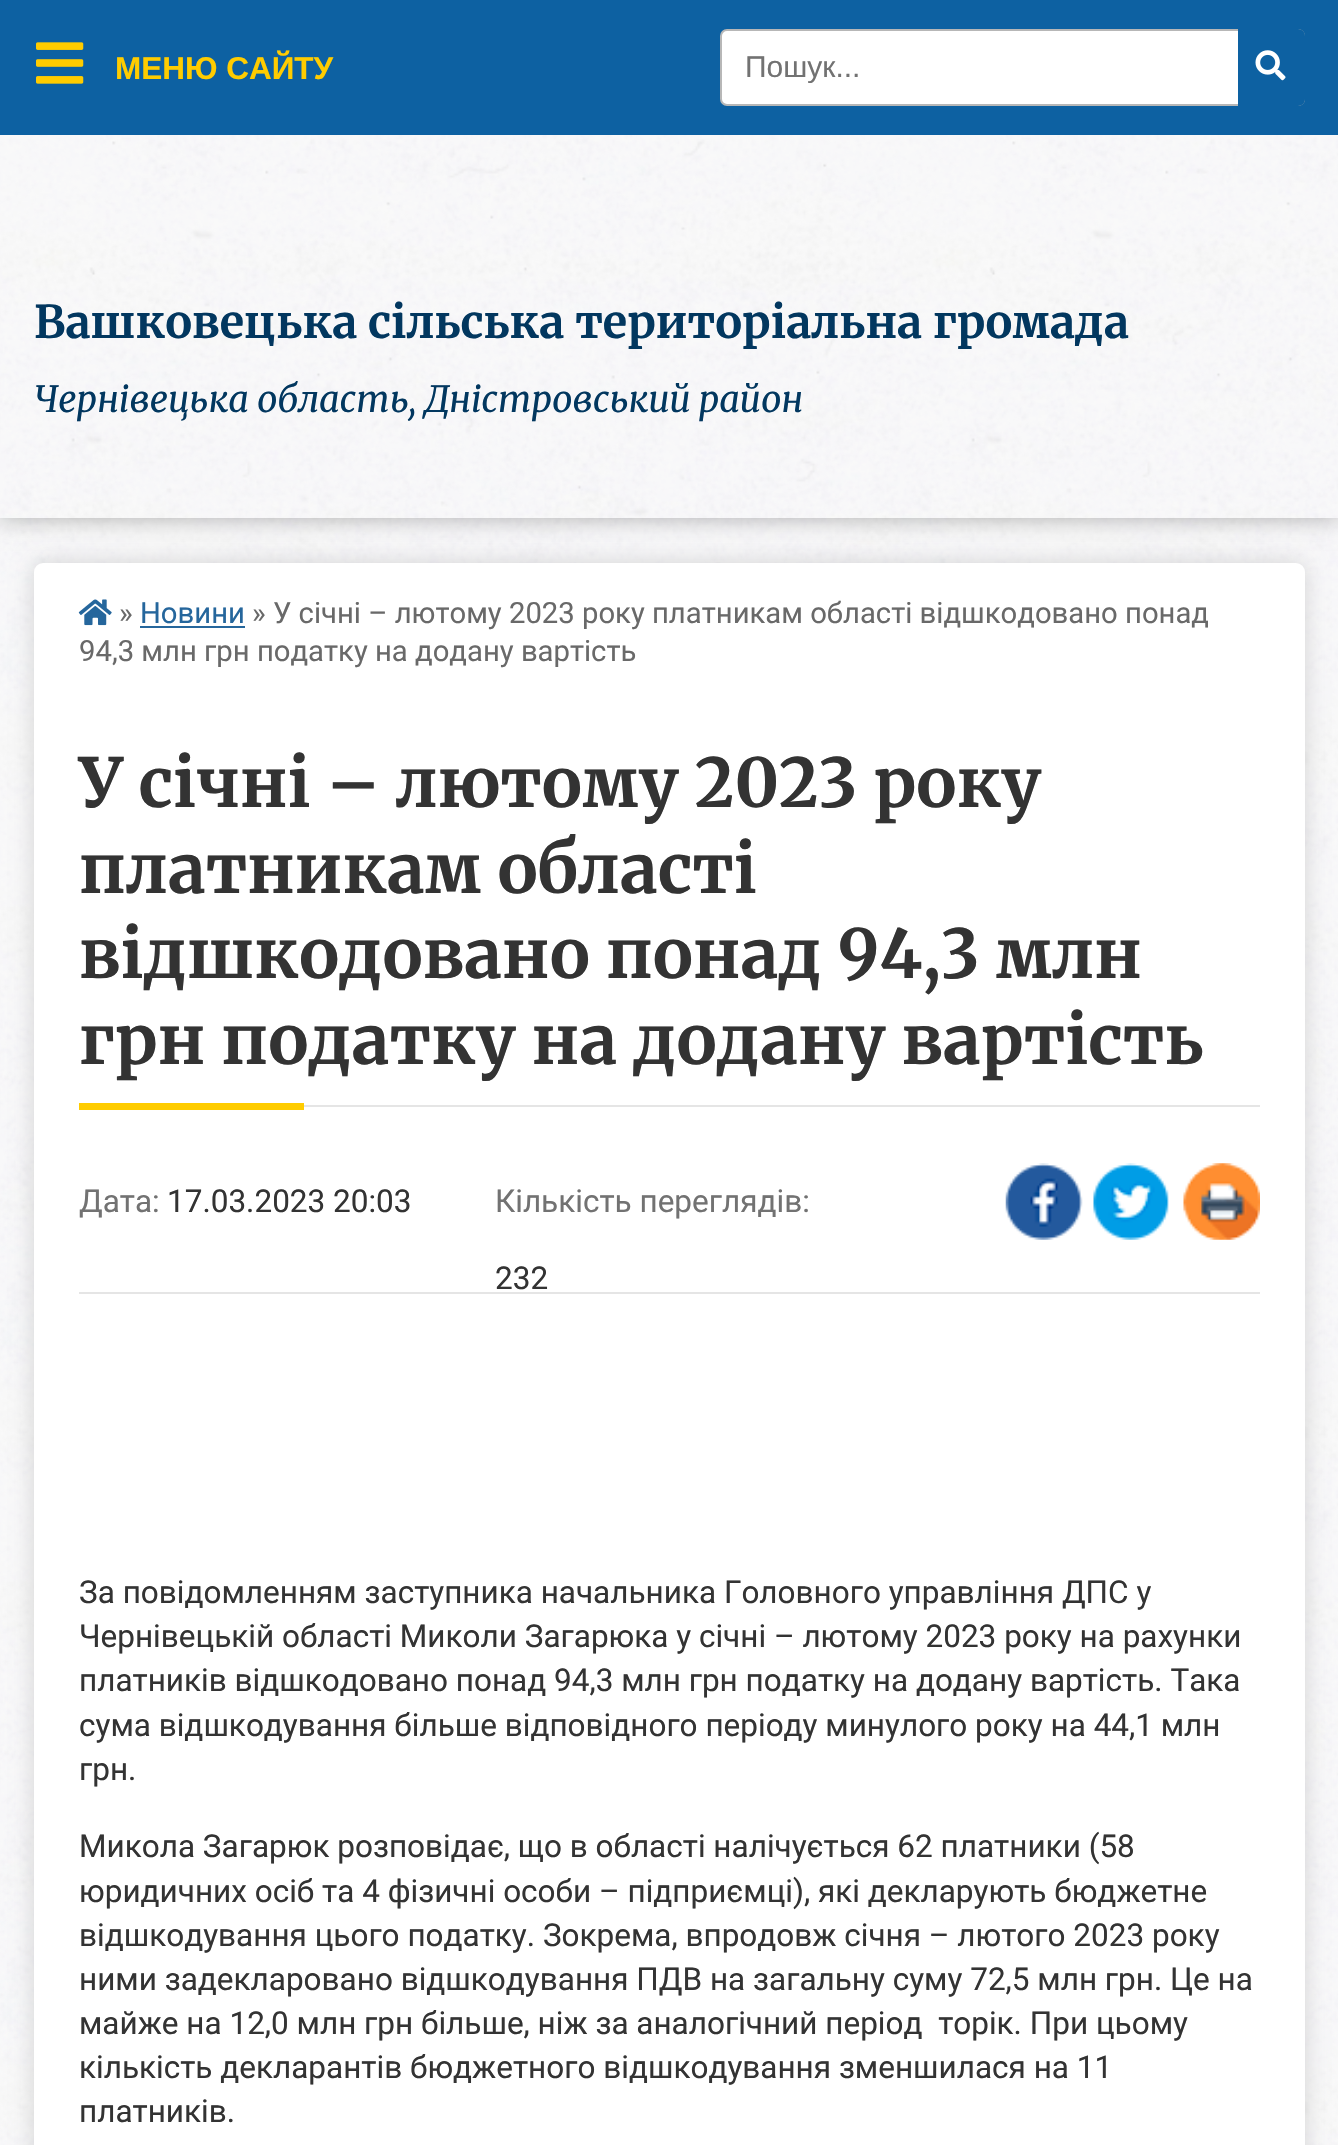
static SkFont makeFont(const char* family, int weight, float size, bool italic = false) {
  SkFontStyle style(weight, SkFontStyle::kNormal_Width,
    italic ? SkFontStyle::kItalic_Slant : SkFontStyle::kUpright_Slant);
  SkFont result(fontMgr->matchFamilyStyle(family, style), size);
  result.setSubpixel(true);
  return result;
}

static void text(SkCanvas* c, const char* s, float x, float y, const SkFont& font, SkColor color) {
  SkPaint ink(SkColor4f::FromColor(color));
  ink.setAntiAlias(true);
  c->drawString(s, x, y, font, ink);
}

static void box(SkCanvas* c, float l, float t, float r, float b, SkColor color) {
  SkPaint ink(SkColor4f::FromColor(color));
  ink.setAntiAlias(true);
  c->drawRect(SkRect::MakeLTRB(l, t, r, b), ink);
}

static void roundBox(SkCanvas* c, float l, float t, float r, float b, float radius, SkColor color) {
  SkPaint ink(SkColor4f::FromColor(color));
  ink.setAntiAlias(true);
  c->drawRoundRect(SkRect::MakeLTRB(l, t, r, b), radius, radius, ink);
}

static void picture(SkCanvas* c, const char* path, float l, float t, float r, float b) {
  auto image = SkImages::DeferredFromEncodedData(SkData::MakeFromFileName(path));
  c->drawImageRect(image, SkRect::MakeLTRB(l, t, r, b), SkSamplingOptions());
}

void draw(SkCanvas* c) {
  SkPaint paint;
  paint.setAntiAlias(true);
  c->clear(0xffffffff);
  picture(c, "img_01.png", 0, 135, 1338, 2145);
  paint.setColor(0x26000000);
  paint.setMaskFilter(SkMaskFilter::MakeBlur(kNormal_SkBlurStyle, 11));
  c->drawRoundRect(SkRect::MakeLTRB(34, 563, 1305, 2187), 9, 9, paint);
  paint.setMaskFilter(nullptr);
  roundBox(c, 34, 563, 1305, 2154, 9, 0xffffffff);
  c->save();
  c->clipPath(SkPathBuilder(SkPathFillType::kEvenOdd).moveTo(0, 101).lineTo(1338, 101).lineTo(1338, 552).lineTo(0, 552).close().moveTo(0, 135).lineTo(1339, 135).lineTo(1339, 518).lineTo(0, 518).close().detach(), true);
  paint.setColor(0x4d000000);
  paint.setMaskFilter(SkMaskFilter::MakeBlur(kNormal_SkBlurStyle, 11));
  c->drawRect(SkRect::MakeLTRB(0, 135, 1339, 518), paint);
  paint.setMaskFilter(nullptr);
  c->restore();
  box(c, 0, 0, 1338, 135, 0xff0d61a2);
  picture(c, "img_02.png", 36, 42, 84, 84);
  SkFont face1 = makeFont("Liberation Sans", 700, 31.5f);
  text(c, "МЕНЮ САЙТУ", 115, 79, face1, 0xffffcc00);
  picture(c, "img_03.png", 78, 599, 112, 626);
  SkFont face2 = makeFont("Roboto", 400, 29.25f);
  text(c, "»", 119, 623, face2, 0xff696969);
  text(c, "Новини", 140, 623, face2, 0xff25669c);
  box(c, 140, 626, 245, 628, 0xff25669c);
  text(c, "» У січні – лютому 2023 року платникам області відшкодовано понад", 252, 623, face2, 0xff696969);
  text(c, "94,3 млн грн податку на додану вартість", 79, 661, face2, 0xff696969);
  box(c, 304, 1105, 1260, 1107, 0xffe5e5e5);
  SkFont face3 = makeFont("Merriweather", 300, 67.5f);
  text(c, "У січні – лютому 2023 року", 79, 807, face3, 0xff333333);
  text(c, "платникам області", 79, 893, face3, 0xff333333);
  text(c, "відшкодовано понад 94,3 млн", 79, 978, face3, 0xff333333);
  text(c, "грн податку на додану вартість", 79, 1064, face3, 0xff333333);
  box(c, 79, 1103, 304, 1110, 0xffffcc00);
  SkFont face4 = makeFont("Roboto", 400, 31.5f);
  text(c, "Дата:", 79, 1212, face4, 0xff727272);
  text(c, "17.03.2023 20:03", 167, 1212, face4, 0xff333333);
  text(c, "Кількість переглядів:", 495, 1212, face4, 0xff727272);
  text(c, "232", 495, 1289, face4, 0xff333333);
  picture(c, "img_04.png", 1005, 1163, 1083, 1240);
  picture(c, "img_05.png", 1093, 1163, 1169, 1240);
  picture(c, "img_06.png", 1183, 1163, 1260, 1240);
  box(c, 79, 1292, 1260, 1294, 0xffe5e5e5);
  text(c, "За повідомленням заступника начальника Головного управління ДПС у", 79, 1603, face4, 0xff333333);
  text(c, "Чернівецькій області Миколи Загарюка у січні – лютому 2023 року на рахунки", 79, 1647, face4, 0xff333333);
  text(c, "платників відшкодовано понад 94,3 млн грн податку на додану вартість. Така", 79, 1691, face4, 0xff333333);
  text(c, "сума відшкодування більше відповідного періоду минулого року на 44,1 млн", 79, 1736, face4, 0xff333333);
  text(c, "грн.", 79, 1780, face4, 0xff333333);
  text(c, "Микола Загарюк розповідає, що в області налічується 62 платники (58", 79, 1857, face4, 0xff333333);
  text(c, "юридичних осіб та 4 фізичні особи – підприємці), які декларують бюджетне", 79, 1902, face4, 0xff333333);
  text(c, "відшкодування цього податку. Зокрема, впродовж січня – лютого 2023 року", 79, 1946, face4, 0xff333333);
  text(c, "ними задекларовано відшкодування ПДВ на загальну суму 72,5 млн грн. Це на", 79, 1990, face4, 0xff333333);
  text(c, "майже на 12,0 млн грн більше, ніж за аналогічний період  торік. При цьому", 79, 2034, face4, 0xff333333);
  text(c, "кількість декларантів бюджетного відшкодування зменшилася на 11", 79, 2078, face4, 0xff333333);
  text(c, "платників.", 79, 2122, face4, 0xff333333);
  paint.setColor(0xffffffff);
  c->drawRoundRect(SkRect::MakeLTRB(721, 30, 1304, 105), 6, 6, paint);
  paint.setStyle(SkPaint::kStroke_Style);
  paint.setStrokeWidth(2);
  paint.setColor(0xffb7b7b7);
  c->drawRoundRect(SkRect::MakeLTRB(721, 30, 1304, 105), 6, 6, paint);
  c->save();
  c->clipRect(SkRect::MakeLTRB(745, 50, 1213, 83));
  SkFont face5 = makeFont("Liberation Sans", 400, 30);
  text(c, "Пошук...", 745, 77, face5, 0xff727272);
  c->restore();
  paint.setStyle(SkPaint::kFill_Style);
  paint.setColor(0xff0d61a2);
  c->drawPath(SkPathBuilder().moveTo(1238, 29).lineTo(1298, 29).cubicTo(1302, 29, 1305, 32, 1305, 36).lineTo(1305, 99).cubicTo(1305, 103, 1302, 106, 1298, 106).lineTo(1238, 106).close().detach(), paint);
  picture(c, "img_07.png", 1255, 50, 1286, 81);
  SkFont face6 = makeFont("Merriweather", 300, 45);
  text(c, "Вашковецька сільська територіальна громада", 34, 338, face6, 0xff02375f);
  SkFont face7 = makeFont("Merriweather", 300, 36, true);
  text(c, "Чернівецька область, Дністровський район", 34, 412, face7, 0xff02375f);
}
